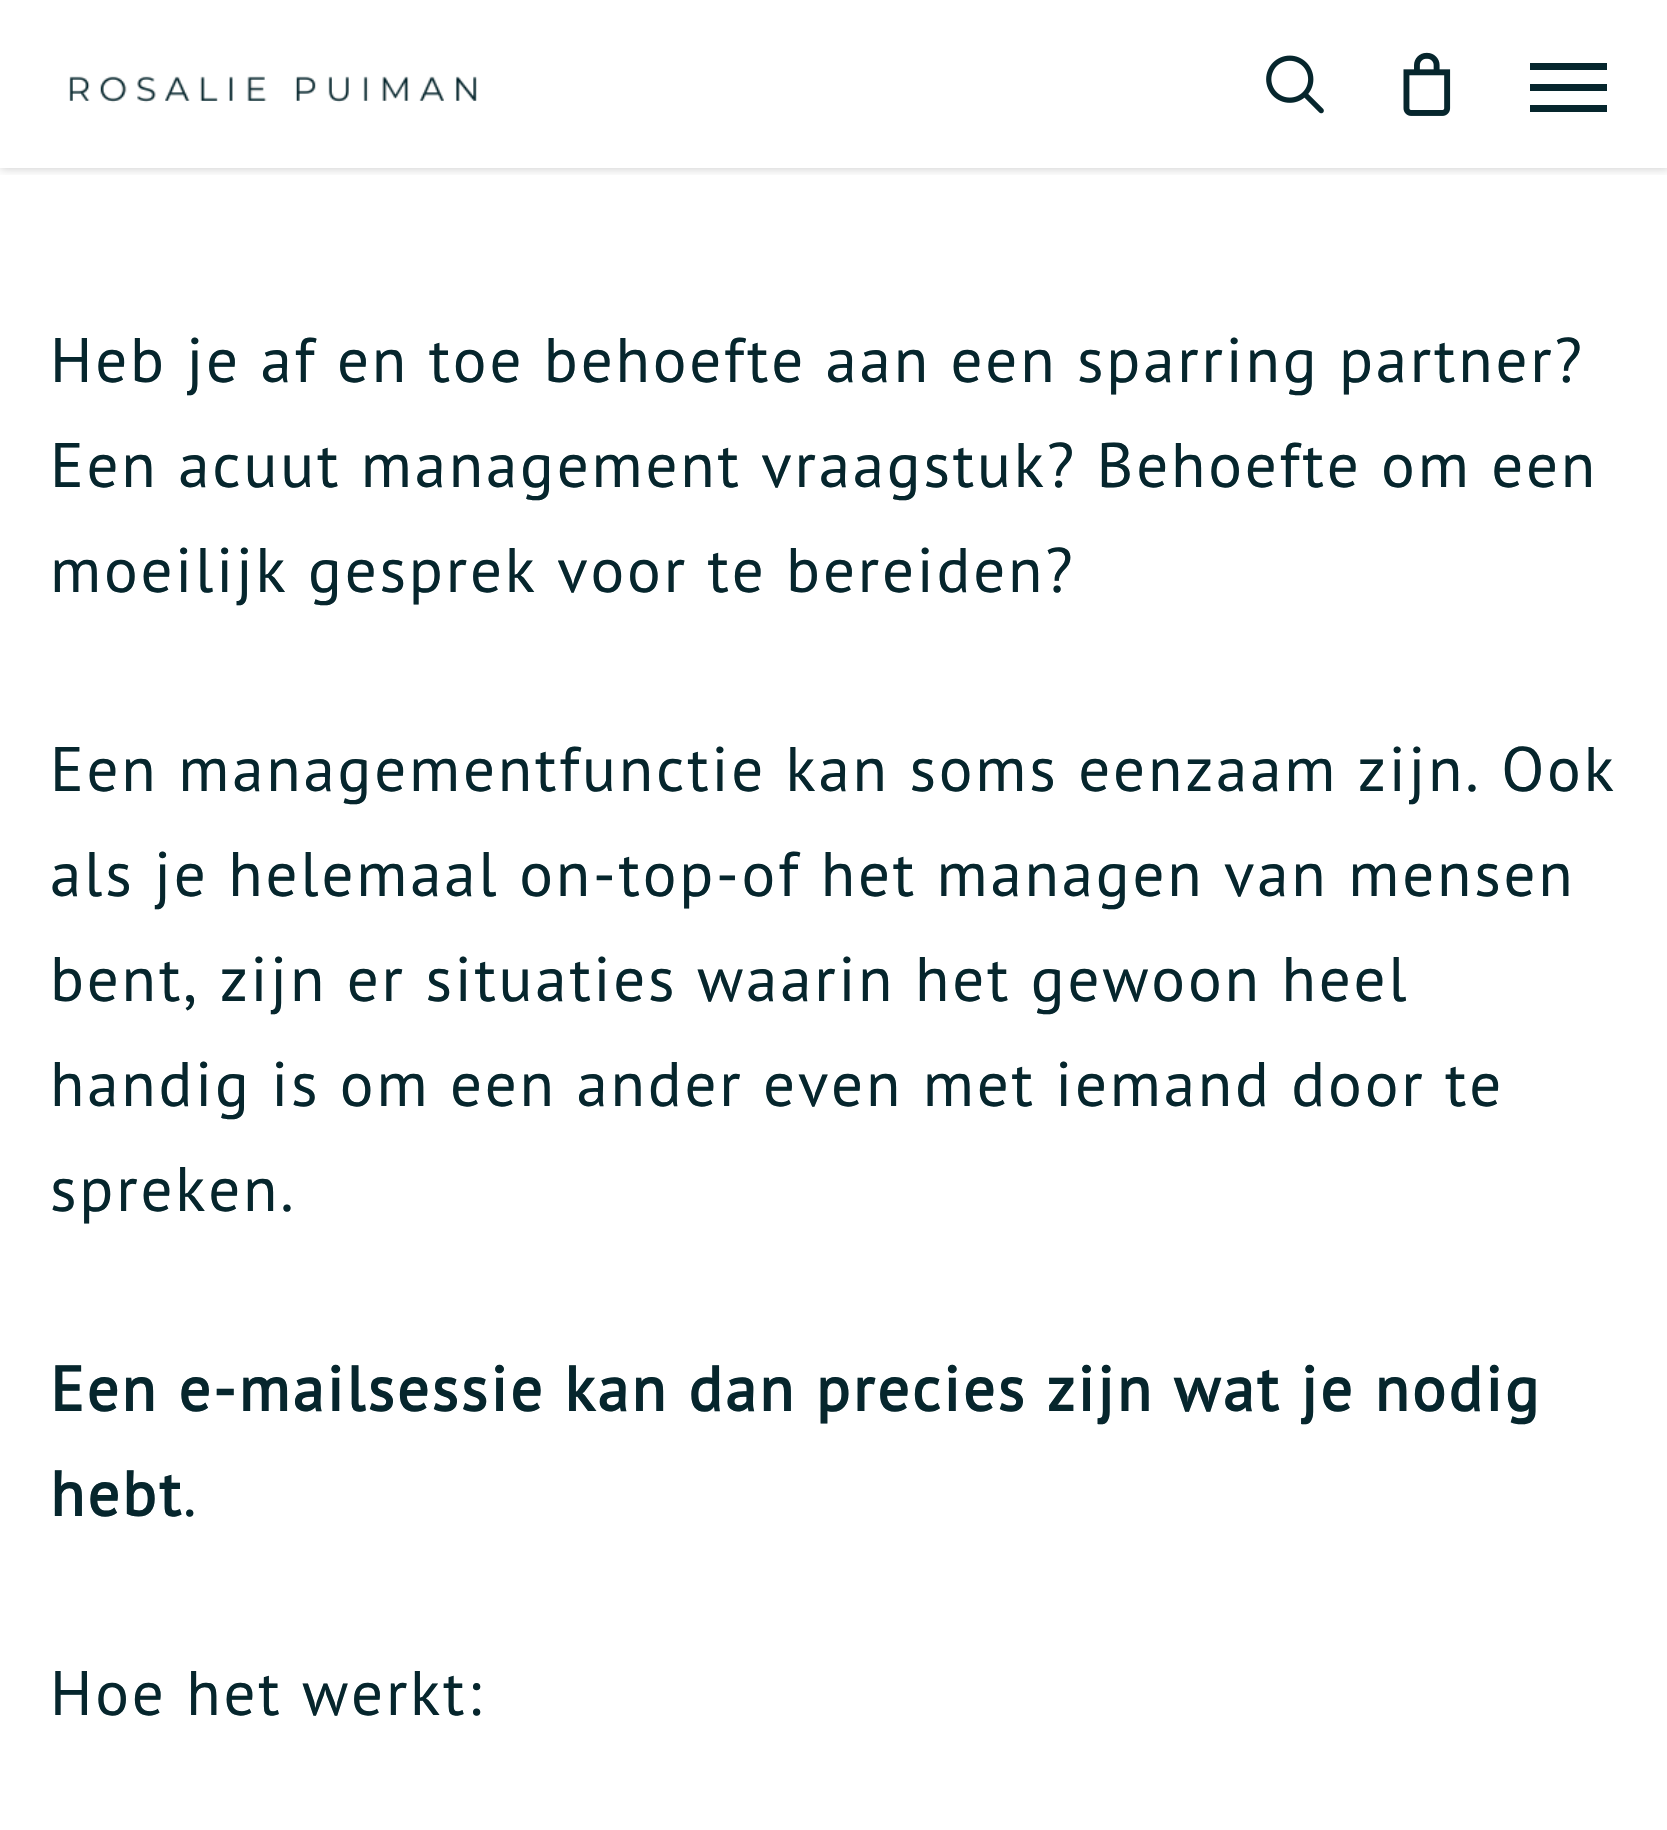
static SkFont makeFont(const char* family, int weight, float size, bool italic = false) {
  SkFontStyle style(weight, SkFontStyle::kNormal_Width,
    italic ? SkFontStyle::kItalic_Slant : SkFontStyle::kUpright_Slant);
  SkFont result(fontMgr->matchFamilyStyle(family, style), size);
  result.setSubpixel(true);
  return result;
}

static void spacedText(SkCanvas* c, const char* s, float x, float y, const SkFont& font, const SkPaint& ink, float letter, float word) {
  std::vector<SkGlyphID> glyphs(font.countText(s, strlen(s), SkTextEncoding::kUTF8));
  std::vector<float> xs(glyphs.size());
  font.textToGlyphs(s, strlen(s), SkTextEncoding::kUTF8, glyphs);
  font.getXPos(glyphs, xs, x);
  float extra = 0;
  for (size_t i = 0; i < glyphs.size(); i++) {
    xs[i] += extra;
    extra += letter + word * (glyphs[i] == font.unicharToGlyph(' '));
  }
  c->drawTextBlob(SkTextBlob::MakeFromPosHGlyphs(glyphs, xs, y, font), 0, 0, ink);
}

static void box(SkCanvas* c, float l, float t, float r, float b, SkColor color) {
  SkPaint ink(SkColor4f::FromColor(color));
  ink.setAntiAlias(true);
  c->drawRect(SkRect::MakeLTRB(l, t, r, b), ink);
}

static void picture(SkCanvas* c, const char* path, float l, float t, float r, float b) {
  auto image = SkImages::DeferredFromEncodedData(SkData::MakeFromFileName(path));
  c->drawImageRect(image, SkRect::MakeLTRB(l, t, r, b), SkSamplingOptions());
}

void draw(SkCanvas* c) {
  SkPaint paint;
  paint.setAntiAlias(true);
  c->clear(0xffffffff);
  c->save();
  c->clipRect(SkRect::MakeLTRB(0, 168, 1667, 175));
  paint.setColor(0x38000000);
  paint.setMaskFilter(SkMaskFilter::MakeBlur(kNormal_SkBlurStyle, 5));
  c->drawRect(SkRect::MakeLTRB(0, 0, 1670, 168), paint);
  paint.setMaskFilter(nullptr);
  c->restore();
  picture(c, "img_01.png", 69, 76, 477, 103);
  picture(c, "img_02.png", 1266, 55, 1324, 114);
  picture(c, "img_03.png", 1403, 52, 1451, 116);
  box(c, 1530, 63, 1607, 70, 0xff06262d);
  box(c, 1530, 105, 1607, 112, 0xff06262d);
  box(c, 1530, 84, 1607, 91, 0xff06262d);
  SkFont face1 = makeFont("PT Sans", 400, 63);
  paint.setColor(0xff06262d);
  spacedText(c, "Heb je af en toe behoefte aan een sparring partner?", 50, 382, face1, paint, 2.8f, 0);
  spacedText(c, "Een acuut management vraagstuk? Behoefte om een", 50, 487, face1, paint, 2.8f, 0);
  spacedText(c, "moeilijk gesprek voor te bereiden?", 50, 592, face1, paint, 2.8f, 0);
  spacedText(c, "Een managementfunctie kan soms eenzaam zijn. Ook", 50, 791, face1, paint, 2.8f, 0);
  spacedText(c, "als je helemaal on-top-of het managen van mensen", 50, 896, face1, paint, 2.8f, 0);
  spacedText(c, "bent, zijn er situaties waarin het gewoon heel", 50, 1001, face1, paint, 2.8f, 0);
  spacedText(c, "handig is om een ander even met iemand door te", 50, 1106, face1, paint, 2.8f, 0);
  spacedText(c, "spreken.", 50, 1211, face1, paint, 2.8f, 0);
  SkFont face2 = makeFont("PT Sans", 700, 63);
  spacedText(c, "Een e-mailsessie kan dan precies zijn wat je nodig", 50, 1411, face2, paint, 2.8f, 0);
  spacedText(c, "hebt", 50, 1516, face2, paint, 2.8f, 0);
  spacedText(c, ".", 183, 1516, face1, paint, 2.8f, 0);
  spacedText(c, "Hoe het werkt:", 50, 1715, face1, paint, 2.8f, 0);
}
